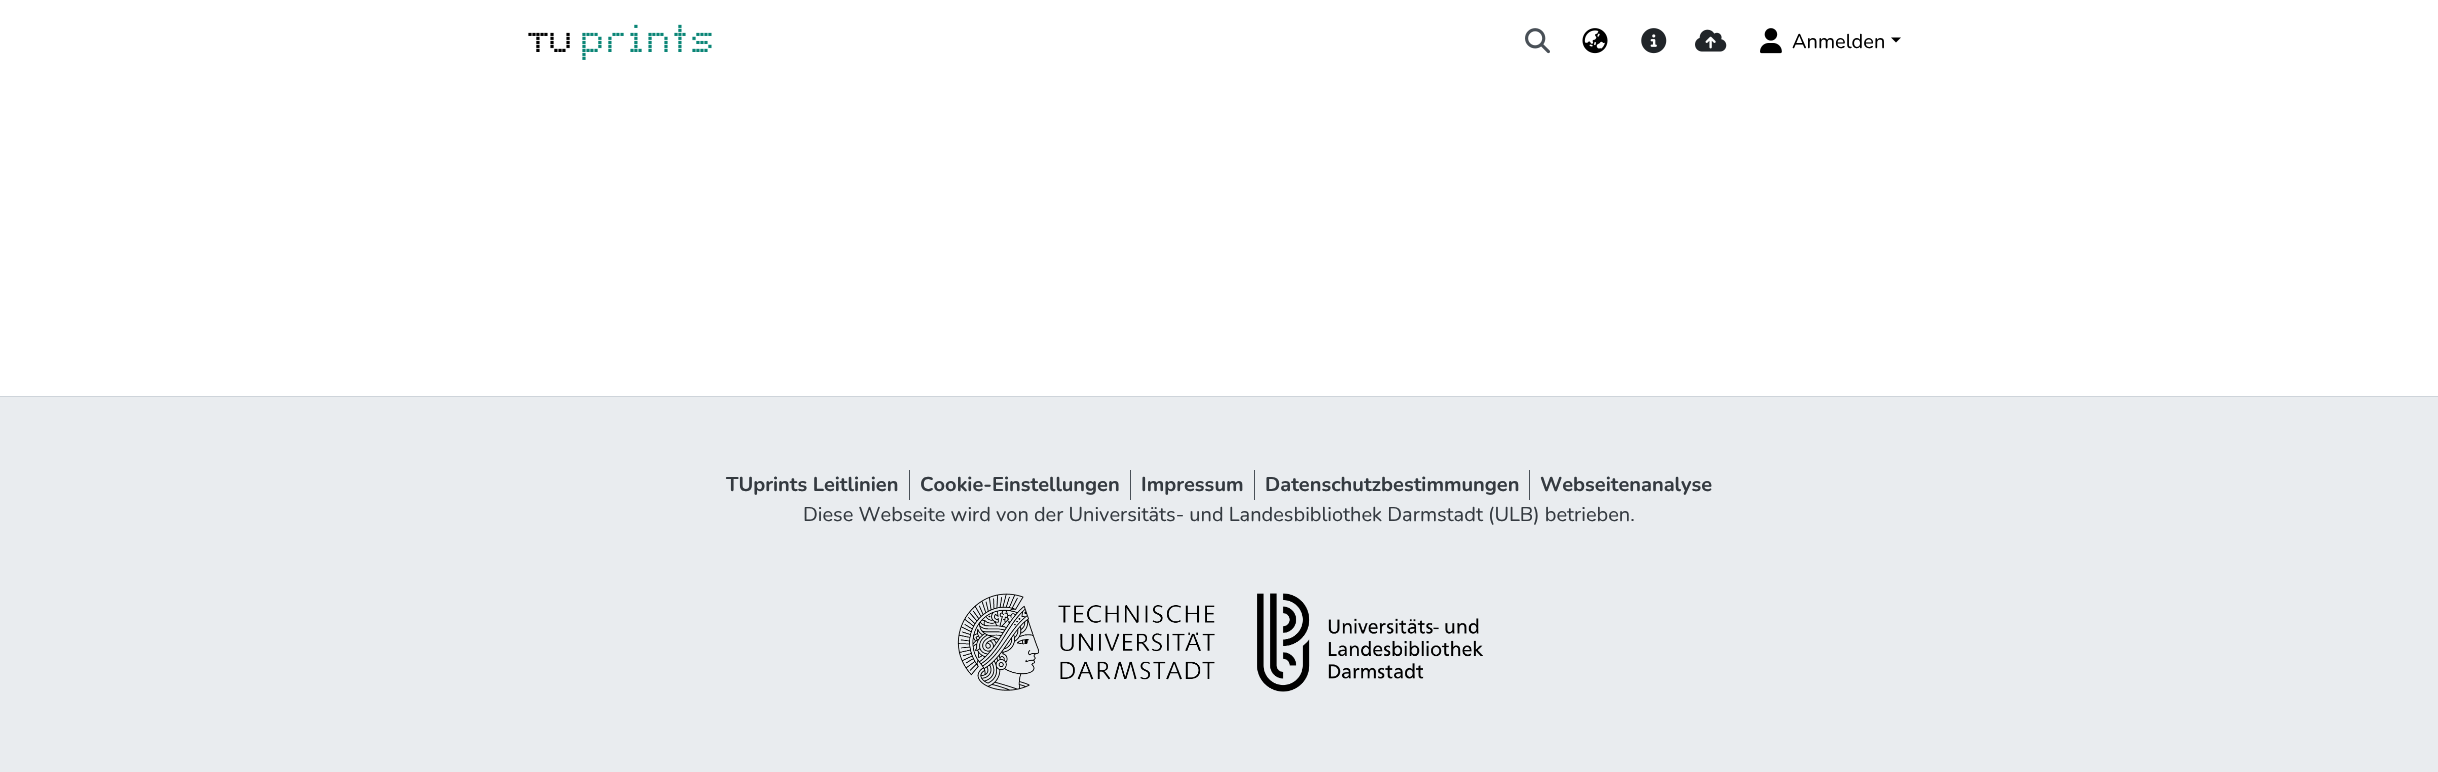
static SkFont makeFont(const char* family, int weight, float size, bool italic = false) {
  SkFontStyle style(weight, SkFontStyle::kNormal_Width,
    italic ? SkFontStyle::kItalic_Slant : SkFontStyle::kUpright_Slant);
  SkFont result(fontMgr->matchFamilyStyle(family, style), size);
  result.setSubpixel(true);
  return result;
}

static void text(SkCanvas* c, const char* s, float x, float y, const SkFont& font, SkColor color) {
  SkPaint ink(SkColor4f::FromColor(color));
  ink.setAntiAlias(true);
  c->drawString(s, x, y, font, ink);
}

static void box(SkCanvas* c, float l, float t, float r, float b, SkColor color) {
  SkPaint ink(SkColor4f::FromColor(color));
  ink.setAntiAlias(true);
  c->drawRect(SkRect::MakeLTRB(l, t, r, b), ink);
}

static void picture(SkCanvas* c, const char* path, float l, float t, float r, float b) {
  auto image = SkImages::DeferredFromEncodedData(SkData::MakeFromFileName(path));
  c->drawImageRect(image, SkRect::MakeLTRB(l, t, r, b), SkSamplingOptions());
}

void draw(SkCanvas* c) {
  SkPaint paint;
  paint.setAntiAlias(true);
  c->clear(0xffffffff);
  picture(c, "img_01.png", 528, 24, 712, 60);
  picture(c, "img_02.png", 1525, 28, 1550, 54);
  picture(c, "img_03.png", 1582, 28, 1608, 54);
  picture(c, "img_04.png", 1641, 28, 1667, 54);
  picture(c, "img_05.png", 1695, 29, 1727, 52);
  picture(c, "img_06.png", 1760, 28, 1782, 54);
  SkFont face1 = makeFont("Nunito", 400, 20);
  text(c, "Anmelden", 1792, 48, face1, 0xff000000);
  paint.setColor(0xff000000);
  c->drawPath(SkPathBuilder().moveTo(1891, 37.5f).lineTo(1901, 37.5f).lineTo(1896, 42.5f).close().detach(), paint);
  box(c, 0, 397, 2438, 772, 0xffe9ecef);
  box(c, 0, 396, 2438, 397, 0xffced4da);
  SkFont face2 = makeFont("Nunito", 700, 20);
  text(c, "TUprints Leitlinien", 726, 491, face2, 0xff343a40);
  box(c, 909, 470, 910, 500, 0xff495057);
  text(c, "Cookie-Einstellungen", 920, 491, face2, 0xff343a40);
  box(c, 1130, 470, 1131, 500, 0xff495057);
  text(c, "Impressum", 1141, 491, face2, 0xff343a40);
  box(c, 1254, 470, 1255, 500, 0xff495057);
  text(c, "Datenschutzbestimmungen", 1265, 491, face2, 0xff343a40);
  box(c, 1529, 470, 1530, 500, 0xff495057);
  text(c, "Webseitenanalyse", 1540, 491, face2, 0xff343a40);
  text(c, "Diese Webseite wird von der Universitäts- und Landesbibliothek Darmstadt (ULB) betrieben.", 803, 521, face1, 0xff343a40);
  picture(c, "img_07.png", 957, 593, 1215, 691);
  picture(c, "img_08.png", 1257, 593, 1483, 692);
}
